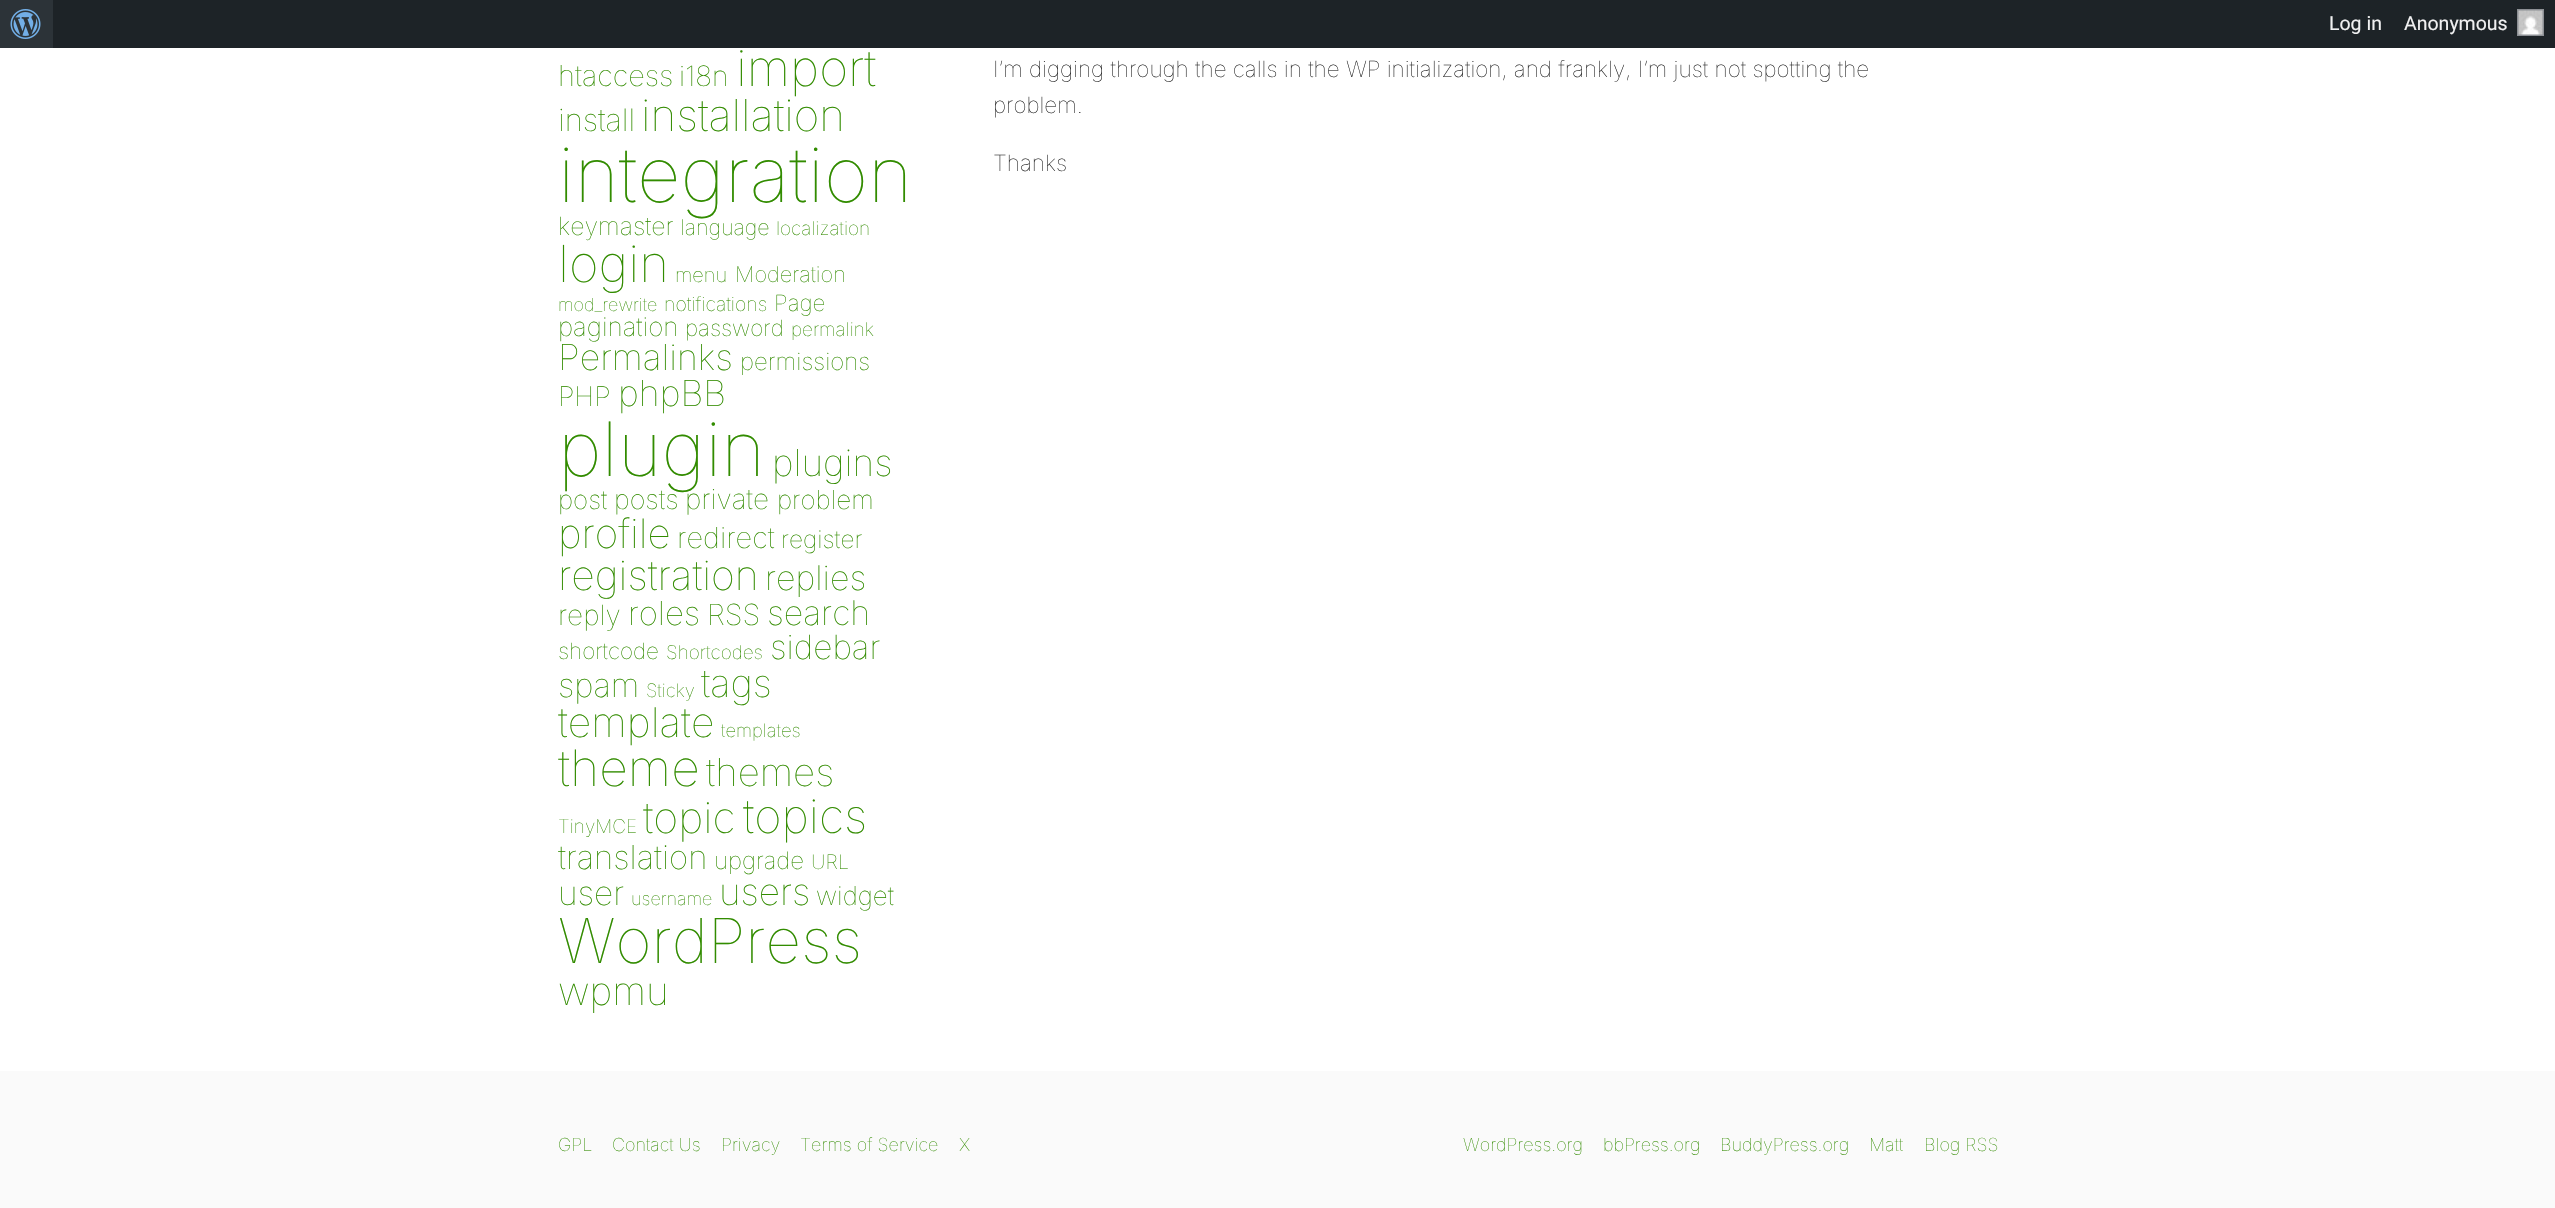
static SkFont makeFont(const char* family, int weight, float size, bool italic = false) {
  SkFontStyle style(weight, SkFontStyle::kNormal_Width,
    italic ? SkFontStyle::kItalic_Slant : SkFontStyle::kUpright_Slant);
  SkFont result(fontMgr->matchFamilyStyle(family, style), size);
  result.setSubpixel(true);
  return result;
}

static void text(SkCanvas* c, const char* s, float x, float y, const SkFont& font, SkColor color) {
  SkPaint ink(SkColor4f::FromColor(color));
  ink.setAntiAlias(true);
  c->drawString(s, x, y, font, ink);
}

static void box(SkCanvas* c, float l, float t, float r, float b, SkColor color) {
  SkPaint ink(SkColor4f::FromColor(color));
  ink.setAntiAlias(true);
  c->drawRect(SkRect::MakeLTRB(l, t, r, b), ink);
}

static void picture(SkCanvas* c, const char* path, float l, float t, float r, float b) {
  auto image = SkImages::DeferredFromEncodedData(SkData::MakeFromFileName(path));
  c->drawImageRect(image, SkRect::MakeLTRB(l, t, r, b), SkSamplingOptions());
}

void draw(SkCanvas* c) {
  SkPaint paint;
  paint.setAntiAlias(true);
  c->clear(0xffffffff);
  box(c, 53, 0, 2555, 48, 0xff1d2327);
  box(c, 0, 0, 53, 48, 0xff2c3338);
  picture(c, "img_01.png", 10, 9, 41, 39);
  SkFont face1 = makeFont("Roboto", 400, 19.5f);
  text(c, "Log in", 2329, 30, face1, 0xfff0f0f1);
  paint.setStyle(SkPaint::kStroke_Style);
  paint.setStrokeWidth(2);
  paint.setColor(0xff8c8f94);
  c->drawRect(SkRect::MakeLTRB(2518, 10, 2543, 35), paint);
  text(c, "Anonymous", 2404, 30, face1, 0xfff0f0f1);
  picture(c, "img_02.png", 2518, 10, 2543, 35);
  SkFont face2 = makeFont("Inter", 100, 29);
  text(c, "htaccess", 558, 86, face2, 0xff328c00);
  SkFont face3 = makeFont("Inter", 100, 28);
  text(c, "i18n", 679, 86, face3, 0xff328c00);
  SkFont face4 = makeFont("Inter", 100, 50);
  text(c, "import", 736, 86, face4, 0xff328c00);
  SkFont face5 = makeFont("Inter", 100, 31);
  text(c, "install", 558, 131, face5, 0xff328c00);
  SkFont face6 = makeFont("Inter", 100, 44);
  text(c, "installation", 641, 131, face6, 0xff328c00);
  SkFont face7 = makeFont("Inter", 100, 76);
  text(c, "integration", 558, 202, face7, 0xff328c00);
  SkFont face8 = makeFont("Inter", 100, 25);
  text(c, "keymaster", 558, 235, face8, 0xff328c00);
  SkFont face9 = makeFont("Inter", 100, 21.5f);
  text(c, "language", 680, 235, face9, 0xff328c00);
  SkFont face10 = makeFont("Inter", 100, 19);
  text(c, "localization", 776, 235, face10, 0xff328c00);
  SkFont face11 = makeFont("Inter", 100, 51);
  text(c, "login", 558, 282, face11, 0xff328c00);
  SkFont face12 = makeFont("Inter", 100, 20);
  text(c, "menu", 675, 282, face12, 0xff328c00);
  SkFont face13 = makeFont("Inter", 100, 21.75f);
  text(c, "Moderation", 735, 282, face13, 0xff328c00);
  SkFont face14 = makeFont("Inter", 100, 18);
  text(c, "mod_rewrite", 558, 311, face14, 0xff328c00);
  SkFont face15 = makeFont("Inter", 100, 19.5f);
  text(c, "notifications", 664, 311, face15, 0xff328c00);
  SkFont face16 = makeFont("Inter", 100, 22.5f);
  text(c, "Page", 774, 311, face16, 0xff328c00);
  SkFont face17 = makeFont("Inter", 100, 26);
  text(c, "pagination", 558, 336, face17, 0xff328c00);
  text(c, "password", 685, 336, face16, 0xff328c00);
  text(c, "permalink", 791, 336, face10, 0xff328c00);
  SkFont face18 = makeFont("Inter", 100, 35.75f);
  text(c, "Permalinks", 558, 370, face18, 0xff328c00);
  SkFont face19 = makeFont("Inter", 100, 24);
  text(c, "permissions", 740, 370, face19, 0xff328c00);
  SkFont face20 = makeFont("Inter", 100, 27);
  text(c, "PHP", 558, 406, face20, 0xff328c00);
  text(c, "phpBB", 618, 406, face18, 0xff328c00);
  SkFont face21 = makeFont("Inter", 100, 75);
  text(c, "plugin", 558, 476, face21, 0xff328c00);
  SkFont face22 = makeFont("Inter", 100, 37);
  text(c, "plugins", 772, 476, face22, 0xff328c00);
  text(c, "post", 558, 509, face17, 0xff328c00);
  text(c, "posts", 614, 509, face20, 0xff328c00);
  text(c, "private", 685, 509, face3, 0xff328c00);
  text(c, "problem", 777, 509, face17, 0xff328c00);
  SkFont face23 = makeFont("Inter", 100, 40.5f);
  text(c, "profile", 558, 548, face23, 0xff328c00);
  text(c, "redirect", 677, 548, face2, 0xff328c00);
  SkFont face24 = makeFont("Inter", 100, 24.5f);
  text(c, "register", 781, 548, face24, 0xff328c00);
  SkFont face25 = makeFont("Inter", 100, 41);
  text(c, "registration", 558, 590, face25, 0xff328c00);
  SkFont face26 = makeFont("Inter", 100, 34);
  text(c, "replies", 765, 590, face26, 0xff328c00);
  text(c, "reply", 558, 625, face3, 0xff328c00);
  SkFont face27 = makeFont("Inter", 100, 33);
  text(c, "roles", 628, 625, face27, 0xff328c00);
  text(c, "RSS", 707, 625, face2, 0xff328c00);
  text(c, "search", 767, 625, face26, 0xff328c00);
  text(c, "shortcode", 558, 659, face16, 0xff328c00);
  text(c, "Shortcodes", 666, 659, face10, 0xff328c00);
  SkFont face28 = makeFont("Inter", 100, 33.5f);
  text(c, "sidebar", 770, 659, face28, 0xff328c00);
  text(c, "spam", 558, 697, face27, 0xff328c00);
  SkFont face29 = makeFont("Inter", 100, 18.5f);
  text(c, "Sticky", 646, 697, face29, 0xff328c00);
  SkFont face30 = makeFont("Inter", 100, 38.5f);
  text(c, "tags", 701, 697, face30, 0xff328c00);
  text(c, "template", 558, 737, face25, 0xff328c00);
  text(c, "templates", 721, 737, face29, 0xff328c00);
  text(c, "theme", 558, 786, face4, 0xff328c00);
  text(c, "themes", 706, 786, face30, 0xff328c00);
  text(c, "TinyMCE", 558, 833, face10, 0xff328c00);
  SkFont face31 = makeFont("Inter", 100, 43);
  text(c, "topic", 643, 833, face31, 0xff328c00);
  SkFont face32 = makeFont("Inter", 100, 47);
  text(c, "topics", 743, 833, face32, 0xff328c00);
  text(c, "translation", 558, 869, face27, 0xff328c00);
  text(c, "upgrade", 714, 869, face19, 0xff328c00);
  text(c, "URL", 811, 869, face12, 0xff328c00);
  text(c, "user", 558, 905, face28, 0xff328c00);
  text(c, "username", 631, 905, face14, 0xff328c00);
  text(c, "users", 719, 905, face22, 0xff328c00);
  text(c, "widget", 816, 905, face17, 0xff328c00);
  SkFont face33 = makeFont("Inter", 100, 62);
  text(c, "WordPress", 558, 963, face33, 0xff328c00);
  SkFont face34 = makeFont("Inter", 100, 39);
  text(c, "wpmu", 558, 1005, face34, 0xff328c00);
  text(c, "I’m digging through the calls in the WP initialization, and frankly, I’m just not spotting the", 993, 77, face16, 0xff222222);
  text(c, "problem.", 993, 113, face16, 0xff222222);
  text(c, "Thanks", 993, 171, face16, 0xff222222);
  box(c, 0, 1071, 2555, 1208, 0xfffafafa);
  text(c, "GPL", 558, 1151, face14, 0xff328c00);
  text(c, "Contact Us", 612, 1151, face14, 0xff328c00);
  text(c, "Privacy", 721, 1151, face14, 0xff328c00);
  text(c, "Terms of Service", 800, 1151, face14, 0xff328c00);
  text(c, "X", 959, 1151, face14, 0xff328c00);
  text(c, "WordPress.org", 1463, 1151, face14, 0xff328c00);
  text(c, "bbPress.org", 1603, 1151, face14, 0xff328c00);
  text(c, "BuddyPress.org", 1720, 1151, face14, 0xff328c00);
  text(c, "Matt", 1869, 1151, face14, 0xff328c00);
  text(c, "Blog RSS", 1924, 1151, face14, 0xff328c00);
}
